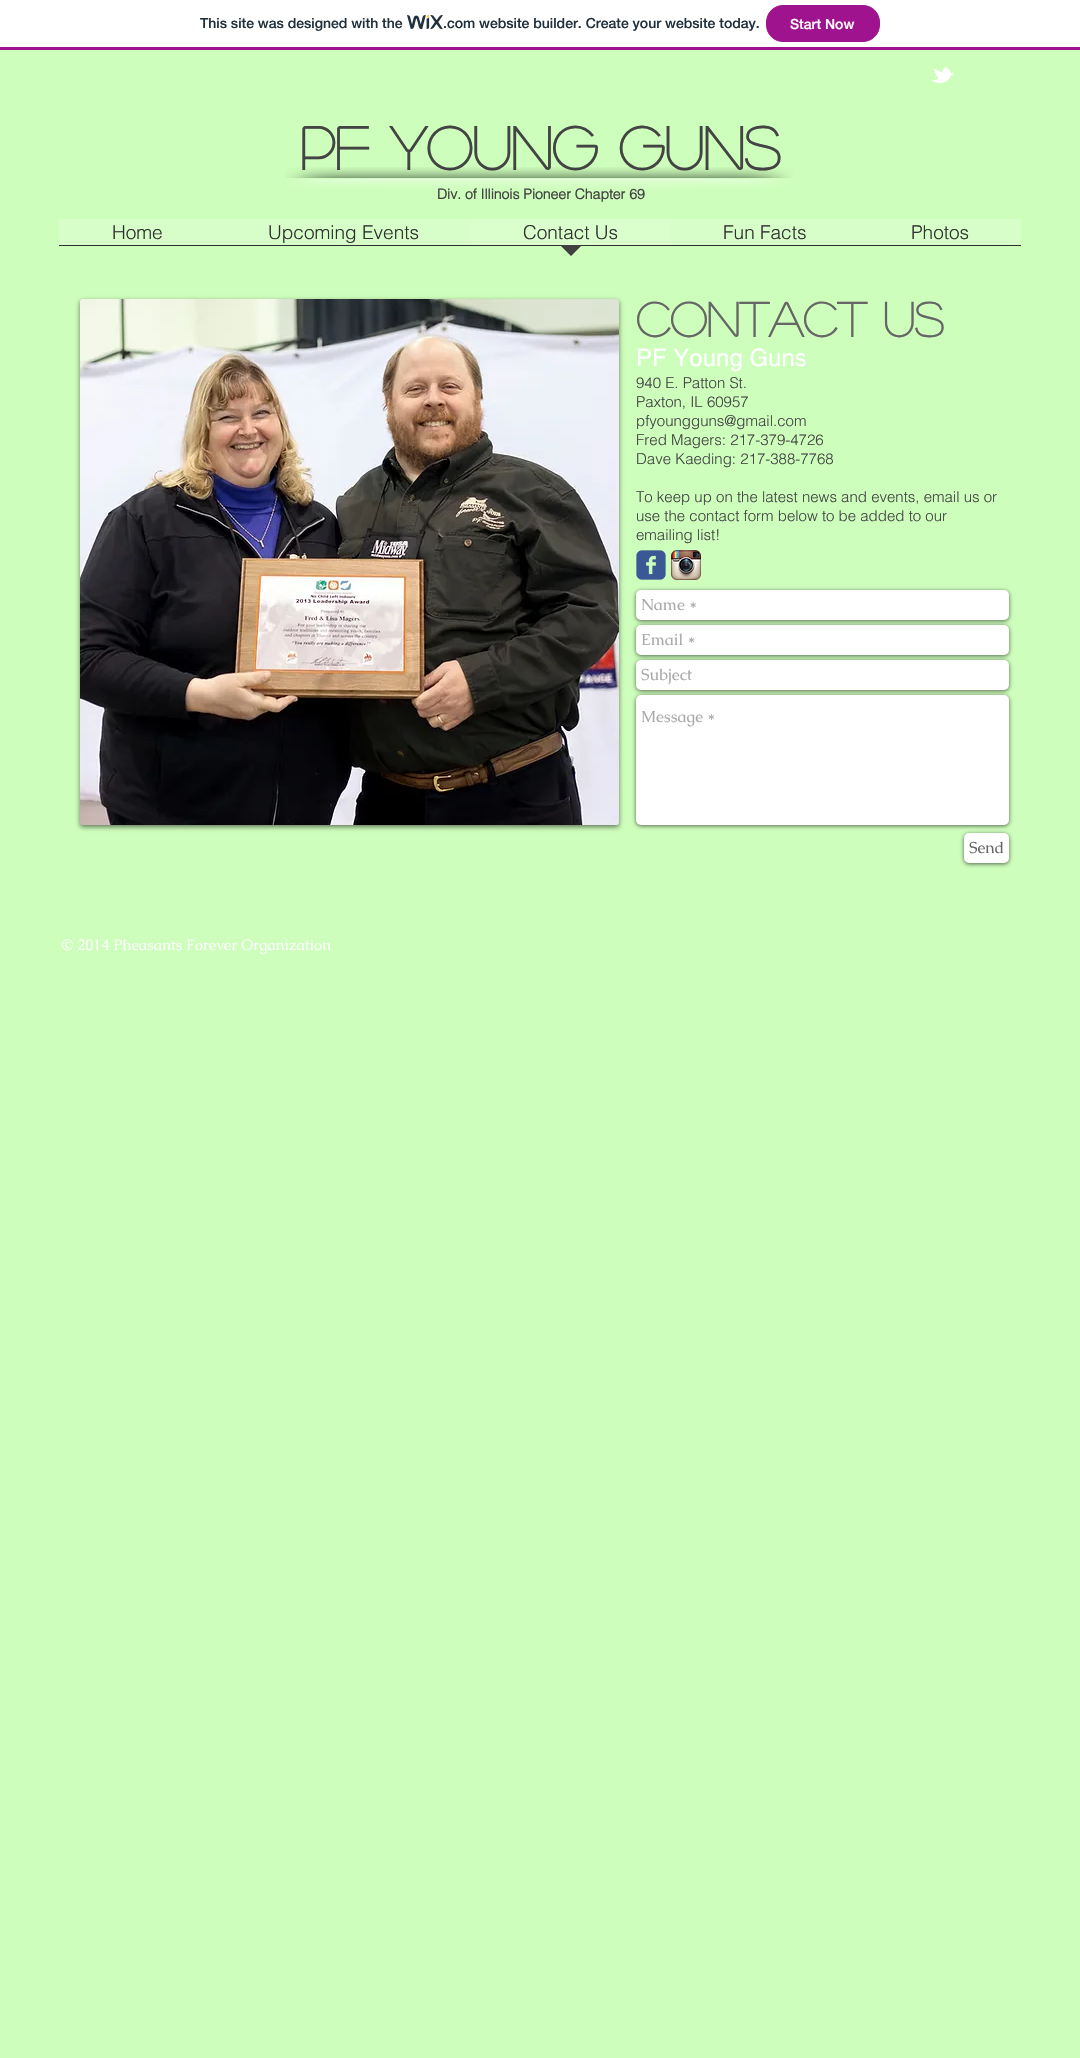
static SkFont makeFont(const char* family, int weight, float size, bool italic = false) {
  SkFontStyle style(weight, SkFontStyle::kNormal_Width,
    italic ? SkFontStyle::kItalic_Slant : SkFontStyle::kUpright_Slant);
  SkFont result(fontMgr->matchFamilyStyle(family, style), size);
  result.setSubpixel(true);
  return result;
}

static void text(SkCanvas* c, const char* s, float x, float y, const SkFont& font, SkColor color) {
  SkPaint ink(SkColor4f::FromColor(color));
  ink.setAntiAlias(true);
  c->drawString(s, x, y, font, ink);
}

static void box(SkCanvas* c, float l, float t, float r, float b, SkColor color) {
  SkPaint ink(SkColor4f::FromColor(color));
  ink.setAntiAlias(true);
  c->drawRect(SkRect::MakeLTRB(l, t, r, b), ink);
}

static void roundBox(SkCanvas* c, float l, float t, float r, float b, float radius, SkColor color) {
  SkPaint ink(SkColor4f::FromColor(color));
  ink.setAntiAlias(true);
  c->drawRoundRect(SkRect::MakeLTRB(l, t, r, b), radius, radius, ink);
}

static void picture(SkCanvas* c, const char* path, float l, float t, float r, float b) {
  auto image = SkImages::DeferredFromEncodedData(SkData::MakeFromFileName(path));
  c->drawImageRect(image, SkRect::MakeLTRB(l, t, r, b), SkSamplingOptions());
}

void draw(SkCanvas* c) {
  SkPaint paint;
  paint.setAntiAlias(true);
  c->clear(0xffffffff);
  box(c, 0, 47, 1080, 50, 0xffa0138e);
  SkFont face1 = makeFont("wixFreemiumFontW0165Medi", 500, 14);
  text(c, "This site was designed with the", 200, 28, face1, 0xff20303c);
  picture(c, "img_01.png", 407, 15, 443, 30);
  text(c, ".com website builder. Create your website today.", 443, 28, face1, 0xff20303c);
  paint.setColor(0xffa0138e);
  c->drawRoundRect(SkRect::MakeLTRB(766.5f, 5.5f, 879.5f, 41.5f), 16.5f, 16.5f, paint);
  paint.setStyle(SkPaint::kStroke_Style);
  paint.setStrokeWidth(1);
  c->drawRoundRect(SkRect::MakeLTRB(766.5f, 5.5f, 879.5f, 41.5f), 16.5f, 16.5f, paint);
  text(c, "Start Now", 790, 29, face1, 0xffffffff);
  box(c, 0, 50, 1080, 2058, 0xffcefebc);
  picture(c, "img_02.png", 930, 67, 954, 84);
  SkFont face2 = makeFont("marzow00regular", 700, 60);
  text(c, "PF Young Guns", 300, 170, face2, 0xff444444);
  SkFont face3 = makeFont("helvetica", 700, 14);
  text(c, "Div. of Illinois Pioneer Chapter 69", 437, 199, face3, 0xff444444);
  picture(c, "img_03.png", 285, 167, 382, 188);
  picture(c, "img_04.png", 382, 167, 696, 190);
  picture(c, "img_05.png", 696, 167, 793, 188);
  box(c, 59, 219, 1021, 245, 0xffd7fec8);
  box(c, 59, 245, 1021, 246, 0xff303030);
  SkFont face4 = makeFont("helvetica", 300, 19);
  text(c, "Home", 112, 239, face4, 0xff303030);
  text(c, "Upcoming Events", 268, 239, face4, 0xff303030);
  box(c, 471, 219, 671, 245, 0xffdafecc);
  text(c, "Contact Us", 523, 239, face4, 0xff303030);
  paint.setStyle(SkPaint::kFill_Style);
  paint.setColor(0xff303030);
  c->drawPath(SkPathBuilder().moveTo(560, 245).lineTo(582, 245).lineTo(571, 256).close().detach(), paint);
  paint.setColor(0xff414141);
  c->drawPath(SkPathBuilder().moveTo(561, 245).lineTo(581, 245).lineTo(571, 255).close().detach(), paint);
  text(c, "Fun Facts", 723, 239, face4, 0xff303030);
  text(c, "Photos", 911, 239, face4, 0xff303030);
  paint.setColor(0x87000000);
  paint.setMaskFilter(SkMaskFilter::MakeBlur(kNormal_SkBlurStyle, 2.5f));
  c->drawRoundRect(SkRect::MakeLTRB(80, 301, 619, 827), 2, 2, paint);
  paint.setMaskFilter(nullptr);
  picture(c, "img_06.png", 80, 299, 619, 825);
  SkFont face5 = makeFont("marzow00regular", 700, 48);
  text(c, "Contact us", 636, 337, face5, 0xff666666);
  SkFont face6 = makeFont("helvetica", 400, 24);
  text(c, "PF Young Guns", 636, 366, face6, 0xffffffff);
  SkFont face7 = makeFont("helvetica", 300, 15);
  text(c, "940 E. Patton St.", 636, 388, face7, 0xff444444);
  text(c, "Paxton, IL 60957", 636, 407, face7, 0xff444444);
  text(c, "pfyoungguns@gmail.com", 636, 426, face7, 0xff444444);
  text(c, "Fred Magers: 217-379-4726", 636, 445, face7, 0xff444444);
  text(c, "Dave Kaeding: 217-388-7768", 636, 464, face7, 0xff444444);
  text(c, "To keep up on the latest news and events, email us or", 636, 502, face7, 0xff444444);
  text(c, "use the contact form below to be added to our", 636, 521, face7, 0xff444444);
  text(c, "emailing list!", 636, 540, face7, 0xff444444);
  picture(c, "img_07.png", 636, 550, 666, 580);
  picture(c, "img_08.png", 671, 550, 701, 580);
  paint.setColor(0x99000000);
  paint.setMaskFilter(SkMaskFilter::MakeBlur(kNormal_SkBlurStyle, 2));
  c->drawRoundRect(SkRect::MakeLTRB(636, 591, 1009, 621), 5, 5, paint);
  paint.setMaskFilter(nullptr);
  roundBox(c, 636, 590, 1009, 620, 5, 0xffffffff);
  SkFont face8 = makeFont("Caudex", 400, 16);
  text(c, "Name *", 641, 610, face8, 0xffa9a9a9);
  paint.setMaskFilter(SkMaskFilter::MakeBlur(kNormal_SkBlurStyle, 2));
  c->drawRoundRect(SkRect::MakeLTRB(636, 626, 1009, 656), 5, 5, paint);
  paint.setMaskFilter(nullptr);
  roundBox(c, 636, 625, 1009, 655, 5, 0xffffffff);
  text(c, "Email *", 641, 645, face8, 0xffa9a9a9);
  paint.setMaskFilter(SkMaskFilter::MakeBlur(kNormal_SkBlurStyle, 2));
  c->drawRoundRect(SkRect::MakeLTRB(636, 661, 1009, 691), 5, 5, paint);
  paint.setMaskFilter(nullptr);
  roundBox(c, 636, 660, 1009, 690, 5, 0xffffffff);
  text(c, "Subject", 641, 680, face8, 0xffa9a9a9);
  paint.setMaskFilter(SkMaskFilter::MakeBlur(kNormal_SkBlurStyle, 2));
  c->drawRoundRect(SkRect::MakeLTRB(636, 696, 1009, 826), 5, 5, paint);
  paint.setMaskFilter(nullptr);
  roundBox(c, 636, 695, 1009, 825, 5, 0xffffffff);
  text(c, "Message *", 641, 722, face8, 0xffa9a9a9);
  paint.setMaskFilter(SkMaskFilter::MakeBlur(kNormal_SkBlurStyle, 2));
  c->drawRoundRect(SkRect::MakeLTRB(964, 834, 1009, 864), 5, 5, paint);
  paint.setMaskFilter(nullptr);
  roundBox(c, 964, 833, 1009, 863, 5, 0xffffffff);
  text(c, "Send", 969, 853, face8, 0xff666666);
  SkFont face9 = makeFont("Caudex", 400, 15);
  text(c, "© 2014 Pheasants Forever Organization", 62, 950, face9, 0xffffffff);
}
